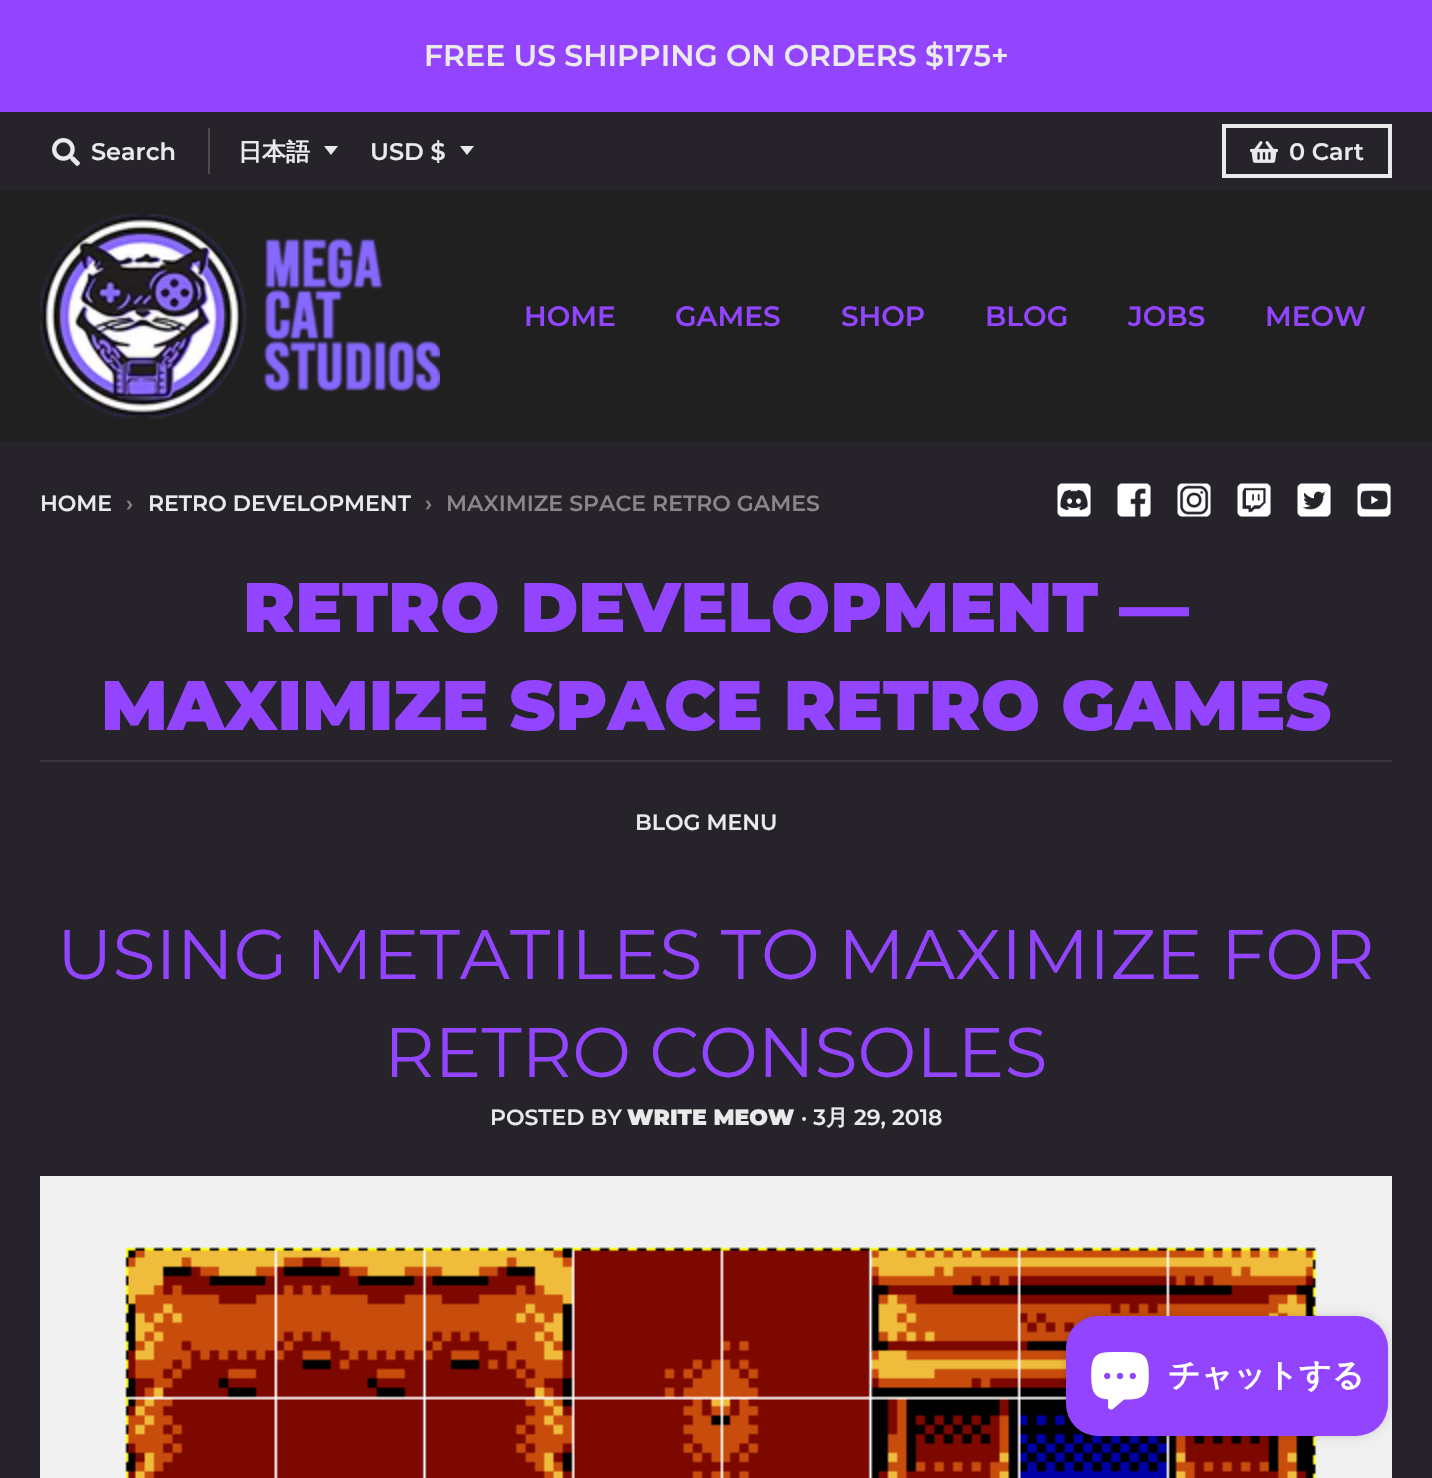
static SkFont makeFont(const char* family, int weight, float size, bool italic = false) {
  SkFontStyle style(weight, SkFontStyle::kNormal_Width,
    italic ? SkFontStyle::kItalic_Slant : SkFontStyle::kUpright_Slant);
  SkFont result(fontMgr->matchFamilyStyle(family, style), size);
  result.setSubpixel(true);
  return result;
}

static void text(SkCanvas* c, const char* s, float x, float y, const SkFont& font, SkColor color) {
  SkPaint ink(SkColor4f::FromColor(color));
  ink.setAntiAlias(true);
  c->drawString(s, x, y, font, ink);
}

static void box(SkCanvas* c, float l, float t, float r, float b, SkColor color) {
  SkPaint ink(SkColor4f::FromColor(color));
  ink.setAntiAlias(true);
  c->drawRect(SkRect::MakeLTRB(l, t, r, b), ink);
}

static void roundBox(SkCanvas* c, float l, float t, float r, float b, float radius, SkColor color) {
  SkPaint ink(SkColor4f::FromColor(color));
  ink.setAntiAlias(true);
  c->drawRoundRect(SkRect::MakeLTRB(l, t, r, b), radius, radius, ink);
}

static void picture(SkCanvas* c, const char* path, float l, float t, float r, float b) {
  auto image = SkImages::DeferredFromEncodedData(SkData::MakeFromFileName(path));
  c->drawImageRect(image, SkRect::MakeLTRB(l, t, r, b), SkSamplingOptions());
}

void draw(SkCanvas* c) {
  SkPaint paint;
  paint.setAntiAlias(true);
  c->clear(0xff26232a);
  box(c, 0, 0, 1432, 112, 0xff9344ff);
  SkFont face1 = makeFont("Montserrat", 600, 30);
  text(c, "FREE US SHIPPING ON ORDERS $175+", 424, 66, face1, 0xffeaeaea);
  picture(c, "img_01.png", 52, 138, 80, 166);
  SkFont face2 = makeFont("Montserrat", 600, 24);
  text(c, "Search", 91, 160, face2, 0xffeaeaea);
  box(c, 208, 128, 210, 174, 0xff4d4a50);
  paint.setColor(0xffeaeaea);
  c->drawPath(SkPathBuilder().moveTo(324, 146).lineTo(331, 155).lineTo(338, 146).close().detach(), paint);
  SkFont face3 = makeFont("WenQuanYi Zen Hei", 700, 24);
  text(c, "日本語", 238, 160, face3, 0xffeaeaea);
  c->drawPath(SkPathBuilder().moveTo(460, 146).lineTo(467, 155).lineTo(474, 146).close().detach(), paint);
  text(c, "USD $", 370, 160, face2, 0xffeaeaea);
  paint.setStyle(SkPaint::kStroke_Style);
  paint.setStrokeWidth(4);
  c->drawRect(SkRect::MakeLTRB(1224, 126, 1390, 176), paint);
  picture(c, "img_02.png", 1250, 141, 1278, 163);
  text(c, "0 Cart", 1289, 160, face2, 0xffeaeaea);
  box(c, 0, 190, 1432, 442, 0xff202020);
  picture(c, "img_03.png", 40, 214, 440, 419);
  SkFont face4 = makeFont("Montserrat", 600, 28);
  text(c, "HOME", 524, 326, face4, 0xff9344ff);
  text(c, "GAMES", 675, 326, face4, 0xff9344ff);
  text(c, "SHOP", 841, 326, face4, 0xff9344ff);
  text(c, "BLOG", 985, 326, face4, 0xff9344ff);
  text(c, "JOBS", 1128, 326, face4, 0xff9344ff);
  text(c, "MEOW", 1265, 326, face4, 0xff9344ff);
  SkFont face5 = makeFont("Montserrat", 600, 22);
  text(c, "HOME", 40, 511, face5, 0xffeaeaea);
  text(c, "›", 126, 511, face5, 0xff88868a);
  text(c, "RETRO DEVELOPMENT", 148, 511, face5, 0xffeaeaea);
  text(c, "›", 425, 511, face5, 0xff88868a);
  text(c, "MAXIMIZE SPACE RETRO GAMES", 446, 511, face5, 0xff88868a);
  picture(c, "img_04.png", 1057, 483, 1091, 517);
  picture(c, "img_05.png", 1117, 483, 1151, 517);
  picture(c, "img_06.png", 1177, 483, 1211, 517);
  picture(c, "img_07.png", 1237, 483, 1271, 517);
  picture(c, "img_08.png", 1297, 483, 1331, 517);
  picture(c, "img_09.png", 1357, 483, 1391, 517);
  box(c, 40, 760, 1392, 762, 0xff39363d);
  SkFont face6 = makeFont("Montserrat", 900, 70);
  text(c, "RETRO DEVELOPMENT —", 243, 632, face6, 0xff9344ff);
  text(c, "MAXIMIZE SPACE RETRO GAMES", 101, 730, face6, 0xff9344ff);
  text(c, "BLOG MENU", 635, 830, face5, 0xffeaeaea);
  SkFont face7 = makeFont("Montserrat", 400, 70);
  text(c, "USING METATILES TO MAXIMIZE FOR", 57, 979, face7, 0xff9344ff);
  text(c, "RETRO CONSOLES", 384, 1077, face7, 0xff9344ff);
  text(c, "POSTED BY", 490, 1125, face5, 0xffeaeaea);
  SkFont face8 = makeFont("Montserrat", 900, 22);
  text(c, "WRITE MEOW", 627, 1125, face8, 0xffeaeaea);
  text(c, "· 3", 801, 1125, face5, 0xffeaeaea);
  SkFont face9 = makeFont("WenQuanYi Zen Hei", 700, 22);
  text(c, "月", 826, 1125, face9, 0xffeaeaea);
  text(c, "29, 2018", 854, 1125, face5, 0xffeaeaea);
  picture(c, "img_10.png", 40, 1176, 1392, 1478);
  paint.setStyle(SkPaint::kFill_Style);
  paint.setColor(0x26000000);
  paint.setMaskFilter(SkMaskFilter::MakeBlur(kNormal_SkBlurStyle, 5));
  c->drawRoundRect(SkRect::MakeLTRB(1066, 1316, 1388, 1436), 32, 32, paint);
  paint.setMaskFilter(nullptr);
  roundBox(c, 1066, 1316, 1388, 1436, 32, 0xff9344ff);
  picture(c, "img_11.png", 1091, 1352, 1149, 1410);
  SkFont face10 = makeFont("WenQuanYi Zen Hei", 700, 32);
  text(c, "チャットする", 1168, 1386, face10, 0xffffffff);
}
